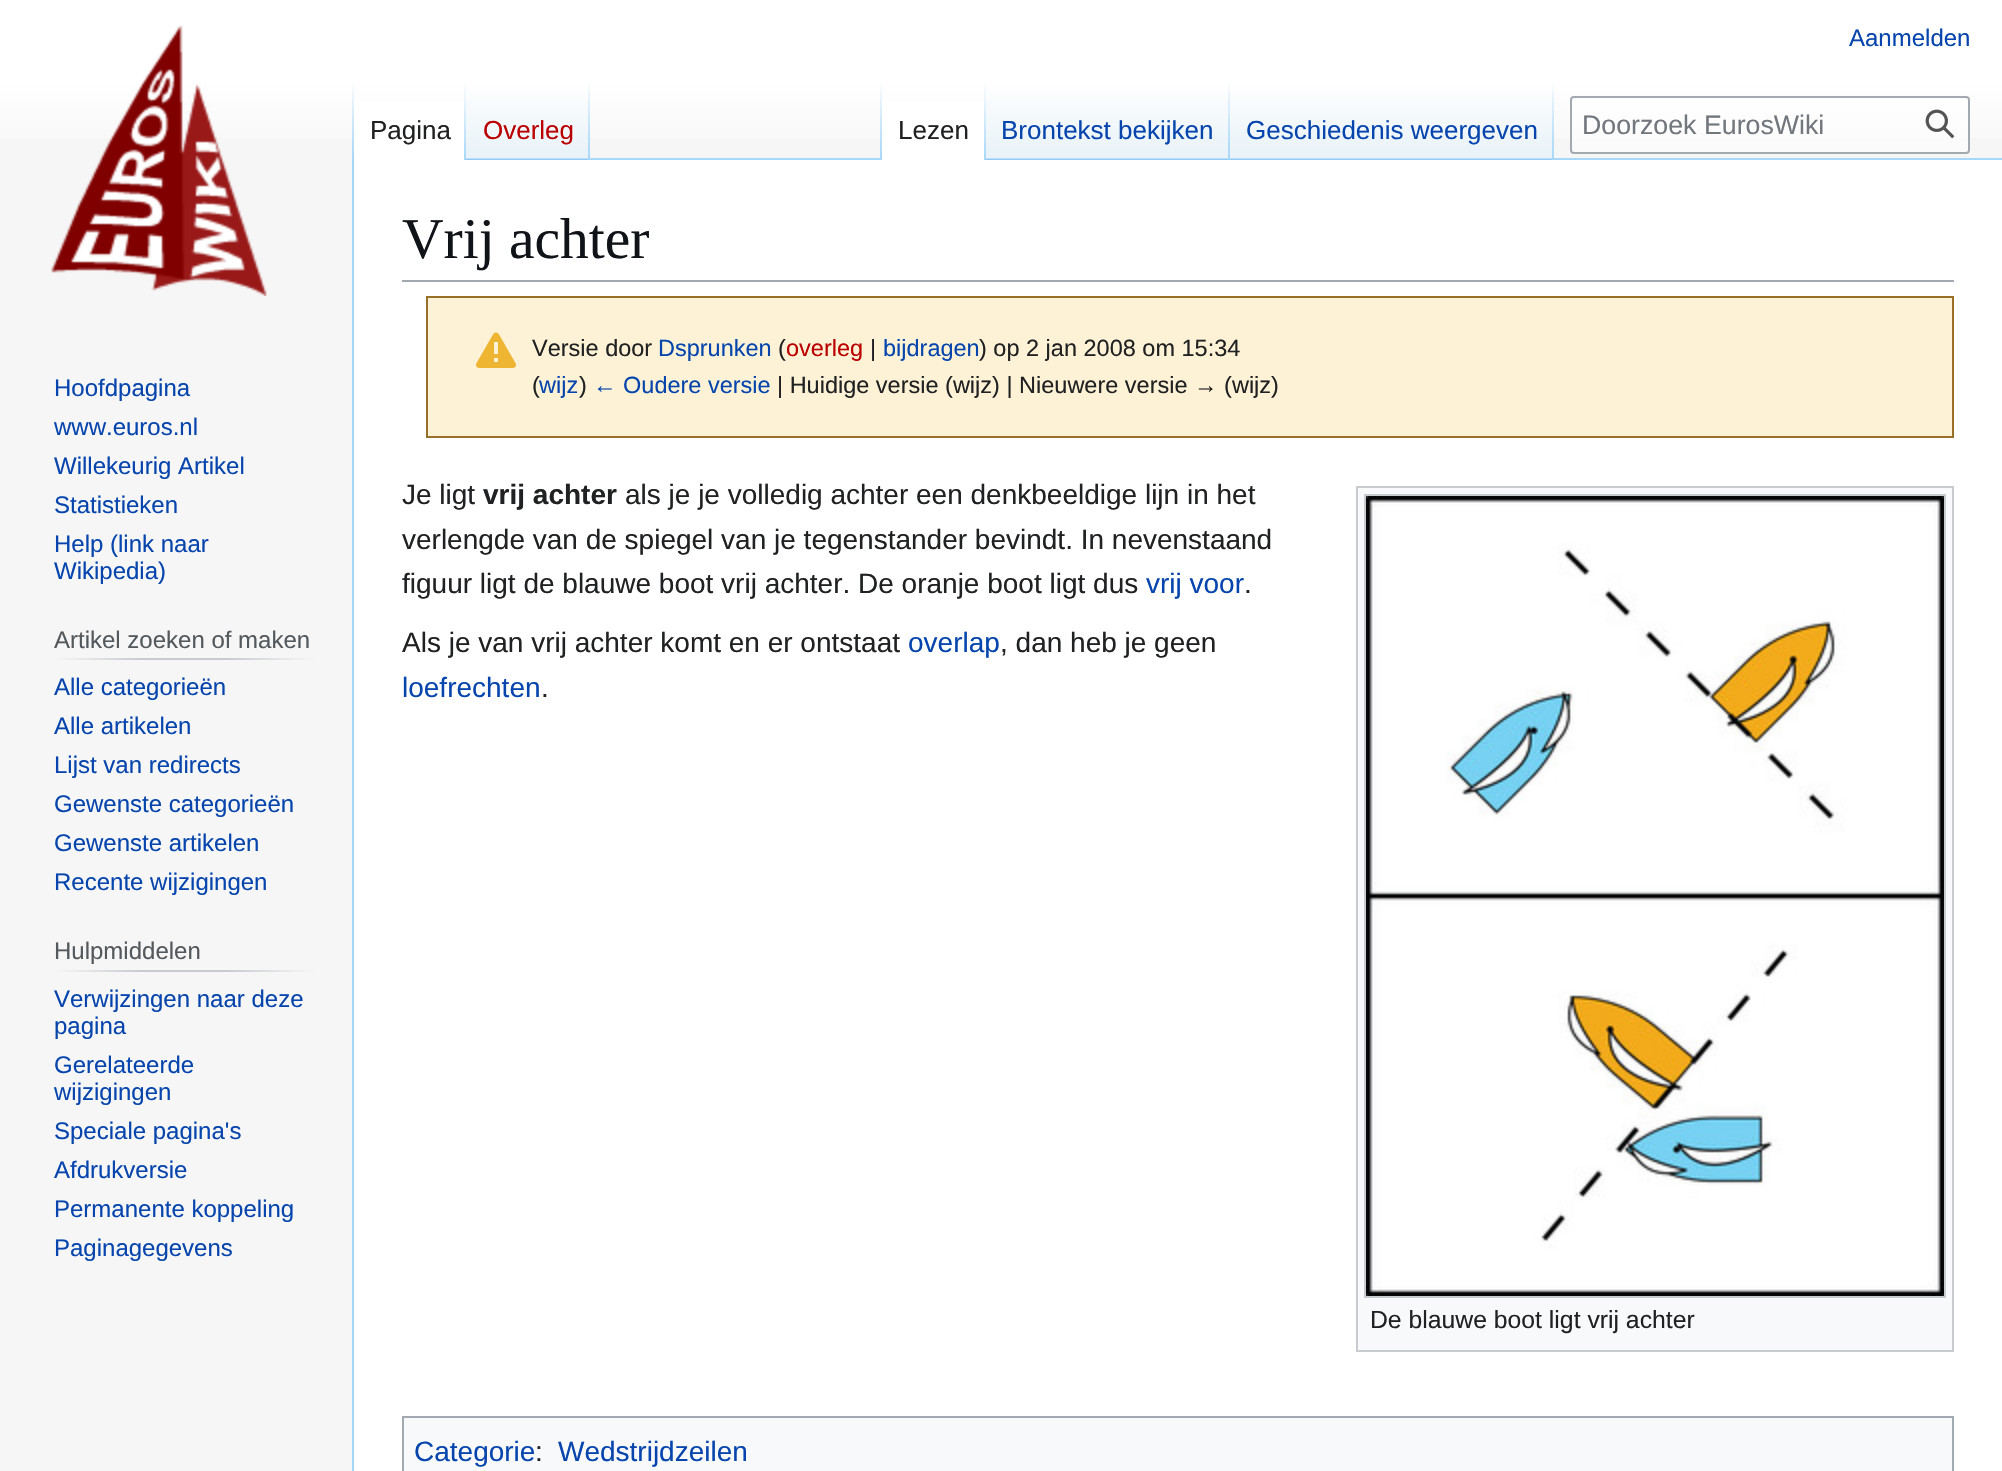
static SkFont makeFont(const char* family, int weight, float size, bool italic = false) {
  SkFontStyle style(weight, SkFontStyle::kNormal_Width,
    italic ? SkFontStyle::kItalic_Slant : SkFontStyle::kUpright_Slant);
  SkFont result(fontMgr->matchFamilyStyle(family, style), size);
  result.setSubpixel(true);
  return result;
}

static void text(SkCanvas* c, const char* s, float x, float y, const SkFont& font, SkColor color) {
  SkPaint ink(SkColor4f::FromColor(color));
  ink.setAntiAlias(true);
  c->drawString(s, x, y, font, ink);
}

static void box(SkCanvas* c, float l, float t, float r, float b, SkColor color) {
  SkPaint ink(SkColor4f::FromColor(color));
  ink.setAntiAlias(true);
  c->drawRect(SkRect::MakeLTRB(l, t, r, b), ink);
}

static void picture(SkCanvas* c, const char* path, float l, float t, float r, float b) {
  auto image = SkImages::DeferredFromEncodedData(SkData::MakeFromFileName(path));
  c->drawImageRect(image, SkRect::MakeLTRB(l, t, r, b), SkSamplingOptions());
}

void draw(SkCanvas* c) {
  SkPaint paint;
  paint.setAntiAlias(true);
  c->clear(0xfff6f6f6);
  {
    const SkColor colors[] = {0xffffffff, 0xfff6f6f6};
    const float stops[] = {0.5f, 1};
    const SkPoint ends[] = {{1001, 0}, {1001, 160}};
    paint.setShader(SkGradientShader::MakeLinear(ends, colors, stops, 2, SkTileMode::kClamp));
    paint.setAlpha(255);
  }
  c->drawRect(SkRect::MakeLTRB(0, 0, 2002, 138), paint);
  SkFont face1 = makeFont("Liberation Sans", 400, 24);
  text(c, "Aanmelden", 1849, 46, face1, 0xff0645ad);
  box(c, 352, 158, 354, 1471, 0xffa7d7f9);
  {
    const SkColor colors[] = {0x00a7d7f9, 0xffa7d7f9};
    const float stops[] = {0, 1};
    const SkPoint ends[] = {{353, 80}, {353, 160}};
    paint.setShader(SkGradientShader::MakeLinear(ends, colors, stops, 2, SkTileMode::kClamp));
    paint.setAlpha(255);
  }
  c->drawRect(SkRect::MakeLTRB(352, 80, 354, 160), paint);
  box(c, 354, 102, 464, 160, 0xffffffff);
  {
    const SkColor colors[] = {0xffffffff, 0xffa7d7f9};
    const float stops[] = {0, 1};
    const SkPoint ends[] = {{465, 80}, {465, 160}};
    paint.setShader(SkGradientShader::MakeLinear(ends, colors, stops, 2, SkTileMode::kClamp));
    paint.setAlpha(255);
  }
  c->drawRect(SkRect::MakeLTRB(464, 80, 466, 160), paint);
  SkFont face2 = makeFont("Liberation Sans", 400, 26);
  text(c, "Pagina", 370, 139, face2, 0xff202122);
  {
    const SkColor colors[] = {0xff77c1f6, 0xffe8f2f8, 0xffffffff};
    const float stops[] = {0, 0.03f, 1};
    const SkPoint ends[] = {{528, 160}, {528, 80}};
    paint.setShader(SkGradientShader::MakeLinear(ends, colors, stops, 3, SkTileMode::kClamp));
    paint.setAlpha(255);
  }
  c->drawRect(SkRect::MakeLTRB(466, 92, 590, 160), paint);
  {
    const SkColor colors[] = {0x00a7d7f9, 0xffa7d7f9};
    const float stops[] = {0, 1};
    const SkPoint ends[] = {{589, 80}, {589, 160}};
    paint.setShader(SkGradientShader::MakeLinear(ends, colors, stops, 2, SkTileMode::kClamp));
    paint.setAlpha(255);
  }
  c->drawRect(SkRect::MakeLTRB(588, 80, 590, 160), paint);
  text(c, "Overleg", 483, 139, face2, 0xffba0000);
  box(c, 590, 158, 2002, 160, 0xffa7d7f9);
  {
    const SkColor colors[] = {0x00a7d7f9, 0xffa7d7f9};
    const float stops[] = {0, 1};
    const SkPoint ends[] = {{881, 80}, {881, 160}};
    paint.setShader(SkGradientShader::MakeLinear(ends, colors, stops, 2, SkTileMode::kClamp));
    paint.setAlpha(255);
  }
  c->drawRect(SkRect::MakeLTRB(880, 80, 882, 160), paint);
  box(c, 882, 102, 984, 160, 0xffffffff);
  {
    const SkColor colors[] = {0xffffffff, 0xffa7d7f9};
    const float stops[] = {0, 1};
    const SkPoint ends[] = {{985, 80}, {985, 160}};
    paint.setShader(SkGradientShader::MakeLinear(ends, colors, stops, 2, SkTileMode::kClamp));
    paint.setAlpha(255);
  }
  c->drawRect(SkRect::MakeLTRB(984, 80, 986, 160), paint);
  text(c, "Lezen", 898, 139, face2, 0xff202122);
  {
    const SkColor colors[] = {0xff77c1f6, 0xffe8f2f8, 0xffffffff};
    const float stops[] = {0, 0.03f, 1};
    const SkPoint ends[] = {{1108, 160}, {1108, 80}};
    paint.setShader(SkGradientShader::MakeLinear(ends, colors, stops, 3, SkTileMode::kClamp));
    paint.setAlpha(255);
  }
  c->drawRect(SkRect::MakeLTRB(986, 92, 1230, 160), paint);
  {
    const SkColor colors[] = {0x00a7d7f9, 0xffa7d7f9};
    const float stops[] = {0, 1};
    const SkPoint ends[] = {{1229, 80}, {1229, 160}};
    paint.setShader(SkGradientShader::MakeLinear(ends, colors, stops, 2, SkTileMode::kClamp));
    paint.setAlpha(255);
  }
  c->drawRect(SkRect::MakeLTRB(1228, 80, 1230, 160), paint);
  text(c, "Brontekst bekijken", 1001, 139, face2, 0xff0645ad);
  {
    const SkColor colors[] = {0xff77c1f6, 0xffe8f2f8, 0xffffffff};
    const float stops[] = {0, 0.03f, 1};
    const SkPoint ends[] = {{1392, 160}, {1392, 80}};
    paint.setShader(SkGradientShader::MakeLinear(ends, colors, stops, 3, SkTileMode::kClamp));
    paint.setAlpha(255);
  }
  c->drawRect(SkRect::MakeLTRB(1230, 92, 1554, 160), paint);
  {
    const SkColor colors[] = {0x00a7d7f9, 0xffa7d7f9};
    const float stops[] = {0, 1};
    const SkPoint ends[] = {{1553, 80}, {1553, 160}};
    paint.setShader(SkGradientShader::MakeLinear(ends, colors, stops, 2, SkTileMode::kClamp));
    paint.setAlpha(255);
  }
  c->drawRect(SkRect::MakeLTRB(1552, 80, 1554, 160), paint);
  text(c, "Geschiedenis weergeven", 1246, 139, face2, 0xff0645ad);
  paint.setShader(nullptr);
  paint.setColor(0x80ffffff);
  c->drawRoundRect(SkRect::MakeLTRB(1571, 97, 1969, 153), 3, 3, paint);
  paint.setStyle(SkPaint::kStroke_Style);
  paint.setStrokeWidth(2);
  paint.setColor(0xffa2a9b1);
  c->drawRoundRect(SkRect::MakeLTRB(1571, 97, 1969, 153), 3, 3, paint);
  SkFont face3 = makeFont("Liberation Sans", 400, 26.75f);
  text(c, "Doorzoek EurosWiki", 1582, 134, face3, 0xff72777d);
  picture(c, "img_01.png", 1925, 109, 1955, 139);
  picture(c, "img_02.png", 51, 26, 267, 296);
  text(c, "Hoofdpagina", 54, 396, face1, 0xff0645ad);
  text(c, "www.euros.nl", 54, 435, face1, 0xff0645ad);
  text(c, "Willekeurig Artikel", 54, 474, face1, 0xff0645ad);
  text(c, "Statistieken", 54, 513, face1, 0xff0645ad);
  text(c, "Help (link naar", 54, 552, face1, 0xff0645ad);
  text(c, "Wikipedia)", 54, 579, face1, 0xff0645ad);
  paint.setStyle(SkPaint::kFill_Style);
  {
    const SkColor colors[] = {0xfff6f6f6, 0xffc8ccd1, 0xffc8ccd1, 0xfff6f6f6};
    const float stops[] = {0, 0.33f, 0.66f, 1};
    const SkPoint ends[] = {{54, 659}, {316, 659}};
    paint.setShader(SkGradientShader::MakeLinear(ends, colors, stops, 4, SkTileMode::kClamp));
    paint.setAlpha(255);
  }
  c->drawRect(SkRect::MakeLTRB(54, 658, 316, 660), paint);
  text(c, "Artikel zoeken of maken", 54, 648, face1, 0xff54595d);
  text(c, "Alle categorieën", 54, 695, face1, 0xff0645ad);
  text(c, "Alle artikelen", 54, 734, face1, 0xff0645ad);
  text(c, "Lijst van redirects", 54, 773, face1, 0xff0645ad);
  text(c, "Gewenste categorieën", 54, 812, face1, 0xff0645ad);
  text(c, "Gewenste artikelen", 54, 851, face1, 0xff0645ad);
  text(c, "Recente wijzigingen", 54, 890, face1, 0xff0645ad);
  {
    const SkColor colors[] = {0xfff6f6f6, 0xffc8ccd1, 0xffc8ccd1, 0xfff6f6f6};
    const float stops[] = {0, 0.33f, 0.66f, 1};
    const SkPoint ends[] = {{54, 971}, {316, 971}};
    paint.setShader(SkGradientShader::MakeLinear(ends, colors, stops, 4, SkTileMode::kClamp));
    paint.setAlpha(255);
  }
  c->drawRect(SkRect::MakeLTRB(54, 970, 316, 972), paint);
  text(c, "Hulpmiddelen", 54, 959, face1, 0xff54595d);
  text(c, "Verwijzingen naar deze", 54, 1007, face1, 0xff0645ad);
  text(c, "pagina", 54, 1034, face1, 0xff0645ad);
  text(c, "Gerelateerde", 54, 1073, face1, 0xff0645ad);
  text(c, "wijzigingen", 54, 1100, face1, 0xff0645ad);
  text(c, "Speciale pagina's", 54, 1139, face1, 0xff0645ad);
  text(c, "Afdrukversie", 54, 1178, face1, 0xff0645ad);
  text(c, "Permanente koppeling", 54, 1217, face1, 0xff0645ad);
  text(c, "Paginagegevens", 54, 1256, face1, 0xff0645ad);
  box(c, 354, 160, 2002, 1471, 0xffffffff);
  box(c, 402, 280, 1954, 282, 0xffa2a9b1);
  SkFont face4 = makeFont("Liberation Serif", 400, 57.5f);
  text(c, "Vrij achter", 402, 258, face4, 0xff101418);
  paint.setShader(nullptr);
  paint.setColor(0xfffdf2d5);
  c->drawRect(SkRect::MakeLTRB(427, 297, 1953, 437), paint);
  paint.setStyle(SkPaint::kStroke_Style);
  paint.setColor(0xff987027);
  c->drawRect(SkRect::MakeLTRB(427, 297, 1953, 437), paint);
  picture(c, "img_03.png", 476, 332, 516, 368);
  SkFont face5 = makeFont("Liberation Sans", 400, 23.5f);
  text(c, "Versie door", 532, 356, face5, 0xff202122);
  text(c, "Dsprunken", 658, 356, face5, 0xff0645ad);
  text(c, "(", 778, 356, face5, 0xff202122);
  text(c, "overleg", 786, 356, face5, 0xffba0000);
  text(c, "|", 870, 356, face5, 0xff202122);
  text(c, "bijdragen", 883, 356, face5, 0xff0645ad);
  text(c, ") op 2 jan 2008 om 15:34", 979, 356, face5, 0xff202122);
  text(c, "(", 532, 393, face5, 0xff202122);
  text(c, "wijz", 539, 393, face5, 0xff0645ad);
  text(c, ")", 579, 393, face5, 0xff202122);
  text(c, "← Oudere versie", 593, 393, face5, 0xff0645ad);
  text(c, "| Huidige versie (wijz) | Nieuwere versie → (wijz)", 777, 393, face5, 0xff202122);
  SkFont face6 = makeFont("Liberation Sans", 400, 28);
  text(c, "Je ligt", 402, 504, face6, 0xff202122);
  SkFont face7 = makeFont("Liberation Sans", 700, 28);
  text(c, "vrij achter", 483, 504, face7, 0xff202122);
  text(c, "als je je volledig achter een denkbeeldige lijn in het", 625, 504, face6, 0xff202122);
  text(c, "verlengde van de spiegel van je tegenstander bevindt. In nevenstaand", 402, 549, face6, 0xff202122);
  text(c, "figuur ligt de blauwe boot vrij achter. De oranje boot ligt dus", 402, 593, face6, 0xff202122);
  text(c, "vrij voor", 1146, 593, face6, 0xff0645ad);
  text(c, ".", 1244, 593, face6, 0xff202122);
  text(c, "Als je van vrij achter komt en er ontstaat", 402, 652, face6, 0xff202122);
  text(c, "overlap", 908, 652, face6, 0xff0645ad);
  text(c, ", dan heb je geen", 1000, 652, face6, 0xff202122);
  text(c, "loefrechten", 402, 697, face6, 0xff0645ad);
  text(c, ".", 541, 697, face6, 0xff202122);
  box(c, 1358, 488, 1952, 1350, 0xfff8f9fa);
  box(c, 1356, 486, 1954, 488, 0xffc8ccd1);
  box(c, 1356, 1350, 1954, 1352, 0xffc8ccd1);
  box(c, 1952, 486, 1954, 1352, 0xffc8ccd1);
  box(c, 1356, 486, 1358, 1352, 0xffc8ccd1);
  paint.setColor(0xffc8ccd1);
  c->drawRect(SkRect::MakeLTRB(1365, 495, 1945, 1297), paint);
  picture(c, "img_04.png", 1366, 496, 1944, 1296);
  SkFont face8 = makeFont("Liberation Sans", 400, 24.75f);
  text(c, "De blauwe boot ligt vrij achter", 1370, 1328, face8, 0xff202122);
  paint.setStyle(SkPaint::kFill_Style);
  paint.setColor(0xfff8f9fa);
  c->drawRect(SkRect::MakeLTRB(403, 1417, 1953, 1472), paint);
  paint.setStyle(SkPaint::kStroke_Style);
  paint.setColor(0xffa2a9b1);
  c->drawRect(SkRect::MakeLTRB(403, 1417, 1953, 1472), paint);
  text(c, "Categorie", 414, 1461, face6, 0xff0645ad);
  text(c, ":", 535, 1461, face6, 0xff202122);
  text(c, "Wedstrijdzeilen", 558, 1461, face6, 0xff0645ad);
}
